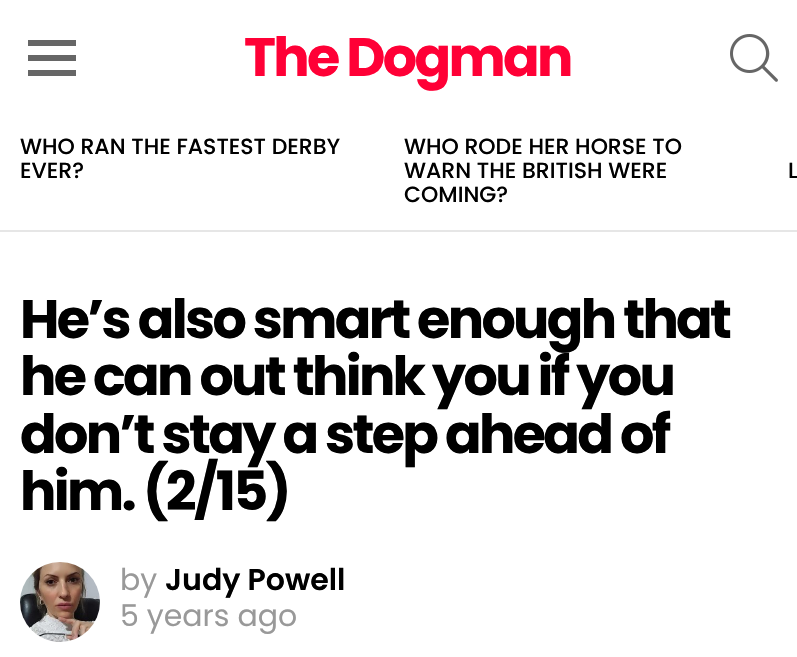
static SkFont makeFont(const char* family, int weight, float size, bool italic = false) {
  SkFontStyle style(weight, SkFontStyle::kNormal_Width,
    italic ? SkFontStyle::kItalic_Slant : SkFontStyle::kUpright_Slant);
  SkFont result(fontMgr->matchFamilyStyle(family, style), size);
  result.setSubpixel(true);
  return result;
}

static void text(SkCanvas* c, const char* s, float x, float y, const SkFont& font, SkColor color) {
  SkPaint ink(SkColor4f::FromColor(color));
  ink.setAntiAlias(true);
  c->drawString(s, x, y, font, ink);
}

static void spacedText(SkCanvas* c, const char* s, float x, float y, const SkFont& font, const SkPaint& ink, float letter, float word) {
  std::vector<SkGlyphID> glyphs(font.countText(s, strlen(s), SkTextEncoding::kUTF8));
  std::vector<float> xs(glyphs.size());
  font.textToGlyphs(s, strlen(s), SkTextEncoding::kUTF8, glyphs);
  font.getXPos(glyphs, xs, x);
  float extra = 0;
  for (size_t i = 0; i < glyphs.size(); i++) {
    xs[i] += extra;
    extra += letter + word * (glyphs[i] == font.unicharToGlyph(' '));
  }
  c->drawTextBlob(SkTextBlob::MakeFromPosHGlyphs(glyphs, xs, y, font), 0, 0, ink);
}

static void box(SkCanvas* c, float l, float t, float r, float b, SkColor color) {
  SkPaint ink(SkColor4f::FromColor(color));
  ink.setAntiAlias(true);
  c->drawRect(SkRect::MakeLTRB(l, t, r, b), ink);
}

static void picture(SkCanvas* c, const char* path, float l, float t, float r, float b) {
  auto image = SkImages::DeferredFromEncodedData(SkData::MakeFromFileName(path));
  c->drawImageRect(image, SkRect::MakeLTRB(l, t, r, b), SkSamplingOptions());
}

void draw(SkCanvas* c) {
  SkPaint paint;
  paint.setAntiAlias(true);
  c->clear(0xffffffff);
  paint.setColor(0xff666666);
  c->drawPath(SkPathBuilder().moveTo(28, 40).lineTo(76, 40).lineTo(76, 46).lineTo(28, 46).close().moveTo(28, 55).lineTo(76, 55).lineTo(76, 61).lineTo(28, 61).close().moveTo(28, 70).lineTo(76, 70).lineTo(76, 76).lineTo(28, 76).close().detach(), paint);
  SkFont face1 = makeFont("Poppins", 700, 54);
  paint.setColor(0xffff0036);
  spacedText(c, "The Dogman", 244, 76, face1, paint, -2.7f, 0);
  picture(c, "img_01.png", 730, 34, 778, 82);
  box(c, 0, 230, 797, 232, 0xffe6e6e6);
  SkFont face2 = makeFont("Poppins", 500, 22);
  text(c, "WHO RAN THE FASTEST DERBY", 20, 154, face2, 0xff000000);
  text(c, "EVER?", 20, 178, face2, 0xff000000);
  text(c, "WHO RODE HER HORSE TO", 404, 154, face2, 0xff000000);
  text(c, "WARN THE BRITISH WERE", 404, 178, face2, 0xff000000);
  text(c, "COMING?", 404, 202, face2, 0xff000000);
  text(c, "L", 788, 178, face2, 0xff000000);
  paint.setColor(0xff000000);
  spacedText(c, "He’s also smart enough that", 20, 338, face1, paint, -2.7f, 0);
  spacedText(c, "he can out think you if you", 20, 395, face1, paint, -2.7f, 0);
  spacedText(c, "don’t stay a step ahead of", 20, 453, face1, paint, -2.7f, 0);
  spacedText(c, "him. (2/15)", 20, 510, face1, paint, -2.7f, 0);
  SkFont face3 = makeFont("Poppins", 400, 30);
  text(c, "by", 120, 590, face3, 0xff999999);
  picture(c, "img_02.png", 20, 562, 100, 642);
  SkFont face4 = makeFont("Poppins", 600, 30);
  text(c, "Judy Powell", 165, 590, face4, 0xff000000);
  text(c, "5 years ago", 120, 626, face3, 0xff999999);
}
